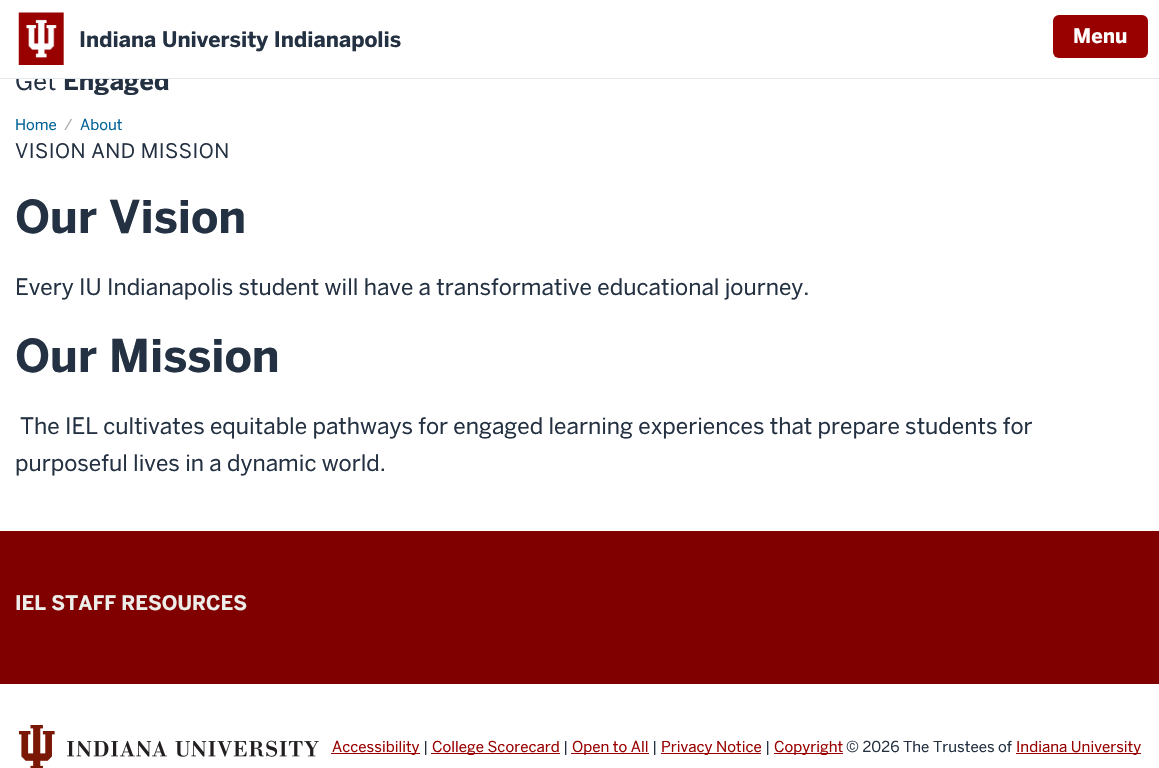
static SkFont makeFont(const char* family, int weight, float size, bool italic = false) {
  SkFontStyle style(weight, SkFontStyle::kNormal_Width,
    italic ? SkFontStyle::kItalic_Slant : SkFontStyle::kUpright_Slant);
  SkFont result(fontMgr->matchFamilyStyle(family, style), size);
  result.setSubpixel(true);
  return result;
}

static void text(SkCanvas* c, const char* s, float x, float y, const SkFont& font, SkColor color) {
  SkPaint ink(SkColor4f::FromColor(color));
  ink.setAntiAlias(true);
  c->drawString(s, x, y, font, ink);
}

static void spacedText(SkCanvas* c, const char* s, float x, float y, const SkFont& font, const SkPaint& ink, float letter, float word) {
  std::vector<SkGlyphID> glyphs(font.countText(s, strlen(s), SkTextEncoding::kUTF8));
  std::vector<float> xs(glyphs.size());
  font.textToGlyphs(s, strlen(s), SkTextEncoding::kUTF8, glyphs);
  font.getXPos(glyphs, xs, x);
  float extra = 0;
  for (size_t i = 0; i < glyphs.size(); i++) {
    xs[i] += extra;
    extra += letter + word * (glyphs[i] == font.unicharToGlyph(' '));
  }
  c->drawTextBlob(SkTextBlob::MakeFromPosHGlyphs(glyphs, xs, y, font), 0, 0, ink);
}

static void box(SkCanvas* c, float l, float t, float r, float b, SkColor color) {
  SkPaint ink(SkColor4f::FromColor(color));
  ink.setAntiAlias(true);
  c->drawRect(SkRect::MakeLTRB(l, t, r, b), ink);
}

static void roundBox(SkCanvas* c, float l, float t, float r, float b, float radius, SkColor color) {
  SkPaint ink(SkColor4f::FromColor(color));
  ink.setAntiAlias(true);
  c->drawRoundRect(SkRect::MakeLTRB(l, t, r, b), radius, radius, ink);
}

static void picture(SkCanvas* c, const char* path, float l, float t, float r, float b) {
  auto image = SkImages::DeferredFromEncodedData(SkData::MakeFromFileName(path));
  c->drawImageRect(image, SkRect::MakeLTRB(l, t, r, b), SkSamplingOptions());
}

void draw(SkCanvas* c) {
  SkPaint paint;
  paint.setAntiAlias(true);
  c->clear(0xffffffff);
  SkFont face1 = makeFont("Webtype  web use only", 400, 25);
  text(c, "Get", 15, 90, face1, 0xff243142);
  SkFont face2 = makeFont("Webtype  web use only", 700, 25);
  text(c, "Engaged", 63, 90, face2, 0xff243142);
  box(c, 16, 71, 169, 78, 0xffffffff);
  box(c, 0, 78, 1159, 79, 0xffe2e7e9);
  picture(c, "img_01.png", 18, 12, 64, 65);
  SkFont face3 = makeFont("Webtype  web use only", 700, 21.25f);
  text(c, "Indiana University Indianapolis", 79, 47, face3, 0xff243142);
  roundBox(c, 1053, 15, 1148, 58, 6, 0xff990000);
  SkFont face4 = makeFont("Webtype  web use only", 700, 20);
  text(c, "Menu", 1073, 43, face4, 0xffffffff);
  SkFont face5 = makeFont("Webtype  web use only", 400, 15);
  text(c, "Home", 15, 130, face5, 0xff006298);
  text(c, "/", 64, 130, face5, 0xffaaaaaa);
  text(c, "About", 80, 130, face5, 0xff006298);
  SkFont face6 = makeFont("Webtype  web use only", 400, 20);
  paint.setColor(0xff243142);
  spacedText(c, "VISION AND MISSION", 15, 158, face6, paint, 0.5f, 0);
  SkFont face7 = makeFont("Webtype  web use only", 700, 45);
  text(c, "Our Vision", 15, 233, face7, 0xff243142);
  SkFont face8 = makeFont("Webtype  web use only", 400, 22.5f);
  text(c, "Every IU Indianapolis student will have a transformative educational journey.", 15, 295, face8, 0xff243142);
  text(c, "Our Mission", 15, 372, face7, 0xff243142);
  text(c, "The IEL cultivates equitable pathways for engaged learning experiences that prepare students for", 20, 434, face8, 0xff243142);
  text(c, "purposeful lives in a dynamic world.", 15, 471, face8, 0xff243142);
  box(c, 0, 531, 1159, 684, 0xff800000);
  text(c, "IEL STAFF RESOURCES", 15, 610, face4, 0xffededea);
  picture(c, "img_02.png", 19, 725, 319, 768);
  box(c, 331, 753, 420, 754, 0xff990000);
  text(c, "Accessibility", 332, 752, face5, 0xff990000);
  text(c, "|", 423, 752, face5, 0xff243142);
  box(c, 431, 753, 560, 754, 0xff990000);
  text(c, "College Scorecard", 432, 752, face5, 0xff990000);
  text(c, "|", 563, 752, face5, 0xff243142);
  box(c, 571, 753, 649, 754, 0xff990000);
  text(c, "Open to All", 572, 752, face5, 0xff990000);
  text(c, "|", 652, 752, face5, 0xff243142);
  box(c, 661, 753, 761, 754, 0xff990000);
  text(c, "Privacy Notice", 661, 752, face5, 0xff990000);
  text(c, "|", 765, 752, face5, 0xff243142);
  box(c, 774, 753, 843, 754, 0xff990000);
  text(c, "Copyright", 774, 752, face5, 0xff990000);
  text(c, "© 2026 The Trustees of", 846, 752, face5, 0xff243142);
  box(c, 1016, 753, 1141, 754, 0xff990000);
  text(c, "Indiana University", 1016, 752, face5, 0xff990000);
}
